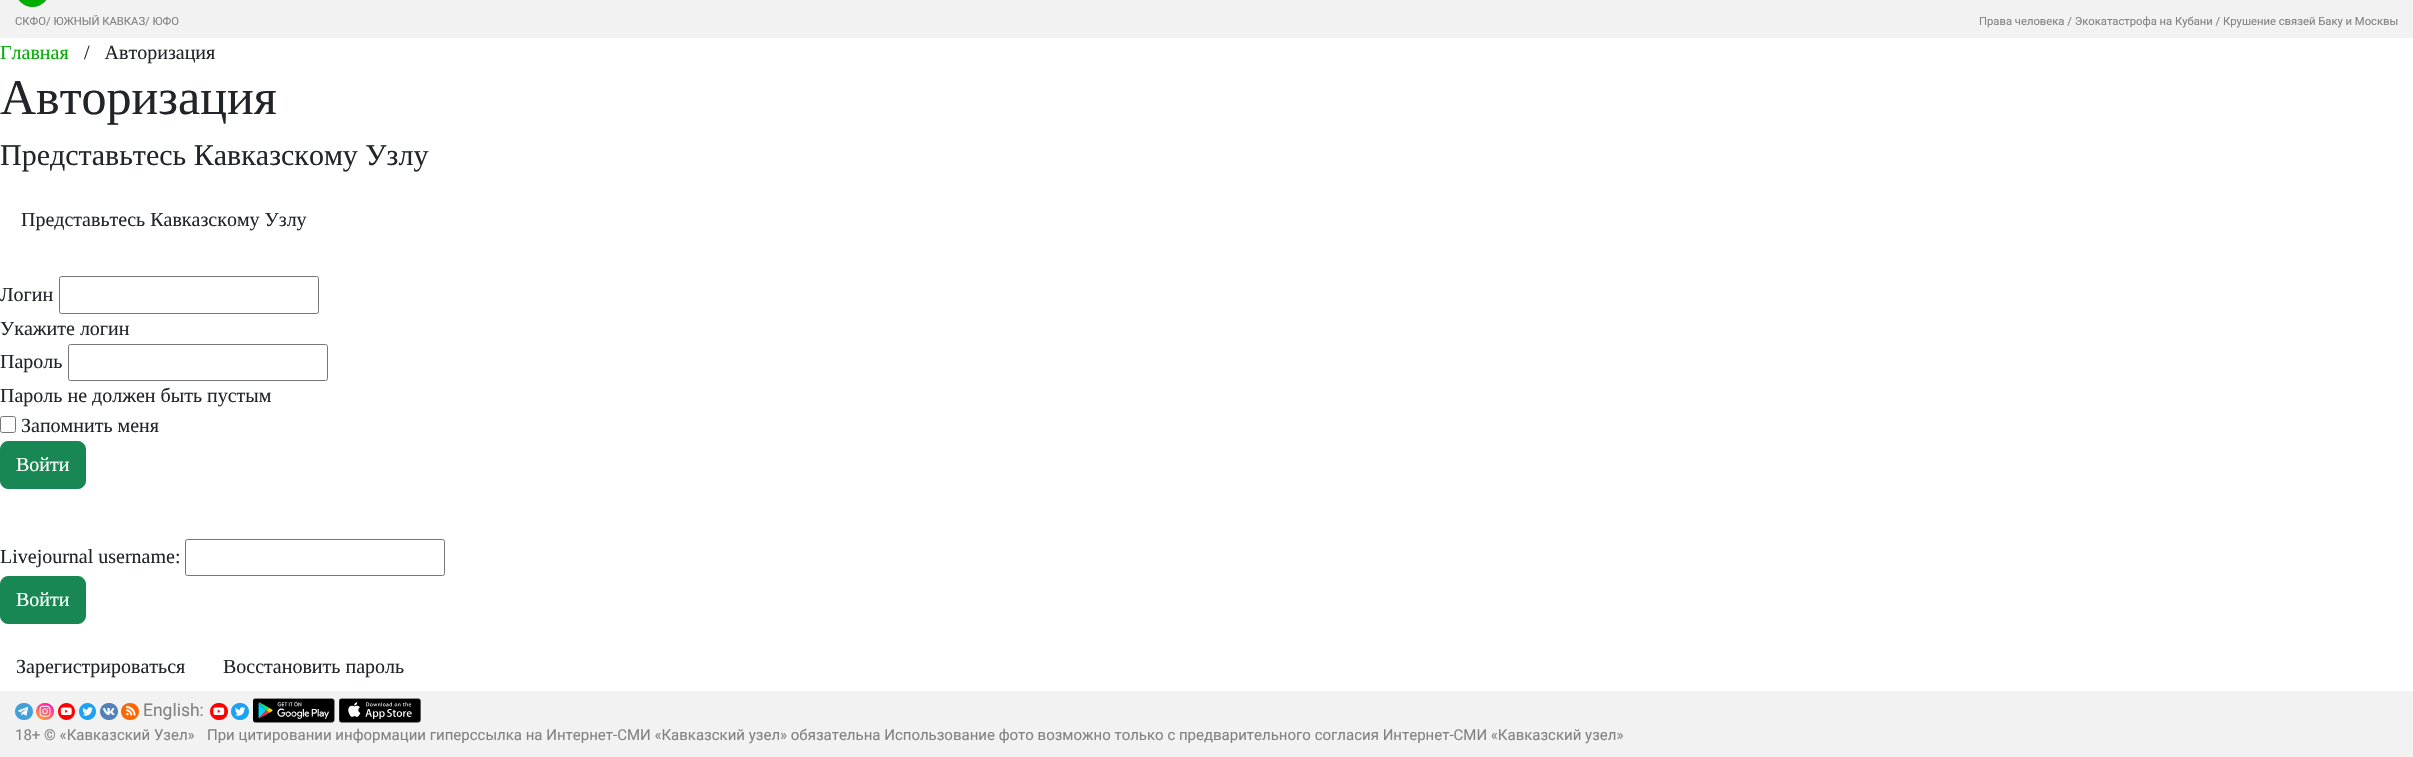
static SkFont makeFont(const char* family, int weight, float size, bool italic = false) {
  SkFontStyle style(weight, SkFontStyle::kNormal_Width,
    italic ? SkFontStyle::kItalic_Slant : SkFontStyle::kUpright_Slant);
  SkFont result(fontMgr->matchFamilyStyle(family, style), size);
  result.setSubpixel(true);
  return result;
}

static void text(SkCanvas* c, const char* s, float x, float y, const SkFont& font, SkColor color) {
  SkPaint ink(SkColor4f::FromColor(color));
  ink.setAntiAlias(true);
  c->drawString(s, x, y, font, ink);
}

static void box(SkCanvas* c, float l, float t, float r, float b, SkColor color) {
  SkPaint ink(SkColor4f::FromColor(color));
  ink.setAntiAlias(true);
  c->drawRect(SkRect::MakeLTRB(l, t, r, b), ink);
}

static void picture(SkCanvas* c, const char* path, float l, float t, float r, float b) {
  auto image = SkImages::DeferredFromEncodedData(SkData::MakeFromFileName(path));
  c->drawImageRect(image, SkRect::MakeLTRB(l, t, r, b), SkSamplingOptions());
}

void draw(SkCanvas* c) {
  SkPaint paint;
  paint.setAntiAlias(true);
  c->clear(0xffffffff);
  box(c, 0, 0, 2413, 38, 0xfff2f2f2);
  picture(c, "img_01.png", 18, 0, 47, 7);
  SkFont face1 = makeFont("Roboto", 400, 11.25f);
  text(c, "СКФО/ ЮЖНЫЙ КАВКАЗ/ ЮФО", 15, 25, face1, 0xff828282);
  text(c, "Права человека / Экокатастрофа на Кубани / Крушение связей Баку и Москвы", 1979, 25, face1, 0xff828282);
  SkFont face2 = makeFont("Liberation Serif", 400, 20);
  text(c, "Главная", 0, 59, face2, 0xff00ae00);
  text(c, "/   Авторизация", 84, 59, face2, 0xff212529);
  SkFont face3 = makeFont("Liberation Serif", 400, 50);
  text(c, "Авторизация", 0, 114, face3, 0xff212529);
  SkFont face4 = makeFont("Liberation Serif", 400, 30);
  text(c, "Представьтесь Кавказскому Узлу", 0, 165, face4, 0xff212529);
  text(c, "Представьтесь Кавказскому Узлу", 21, 226, face2, 0xff212529);
  text(c, "Логин", 0, 301, face2, 0xff212529);
  paint.setStyle(SkPaint::kStroke_Style);
  paint.setStrokeWidth(1);
  paint.setColor(0xff767676);
  c->drawRoundRect(SkRect::MakeLTRB(59.5f, 276.5f, 318.5f, 313.5f), 2, 2, paint);
  text(c, "Укажите логин", 0, 335, face2, 0xff212529);
  text(c, "Пароль", 0, 368, face2, 0xff212529);
  c->drawRoundRect(SkRect::MakeLTRB(68.5f, 344.5f, 327.5f, 380.5f), 2, 2, paint);
  text(c, "Пароль не должен быть пустым", 0, 402, face2, 0xff212529);
  c->drawRoundRect(SkRect::MakeLTRB(0.5f, 416.5f, 15.5f, 432.5f), 2, 2, paint);
  text(c, "Запомнить меня", 21, 432, face2, 0xff212529);
  paint.setStyle(SkPaint::kFill_Style);
  paint.setColor(0xff198754);
  c->drawRoundRect(SkRect::MakeLTRB(0.5f, 441.5f, 85.5f, 488.5f), 7.5f, 7.5f, paint);
  paint.setStyle(SkPaint::kStroke_Style);
  c->drawRoundRect(SkRect::MakeLTRB(0.5f, 441.5f, 85.5f, 488.5f), 7.5f, 7.5f, paint);
  text(c, "Войти", 16, 471, face2, 0xffffffff);
  text(c, "Livejournal username:", 0, 563, face2, 0xff212529);
  paint.setColor(0xff767676);
  c->drawRoundRect(SkRect::MakeLTRB(185.5f, 539.5f, 444.5f, 575.5f), 2, 2, paint);
  paint.setStyle(SkPaint::kFill_Style);
  paint.setColor(0xff198754);
  c->drawRoundRect(SkRect::MakeLTRB(0.5f, 576.5f, 85.5f, 623.5f), 7.5f, 7.5f, paint);
  paint.setStyle(SkPaint::kStroke_Style);
  c->drawRoundRect(SkRect::MakeLTRB(0.5f, 576.5f, 85.5f, 623.5f), 7.5f, 7.5f, paint);
  text(c, "Войти", 16, 606, face2, 0xffffffff);
  text(c, "Зарегистрироваться", 16, 673, face2, 0xff212529);
  text(c, "Восстановить пароль", 223, 673, face2, 0xff212529);
  box(c, 0, 691, 2413, 757, 0xfff2f2f2);
  picture(c, "img_02.png", 15, 703, 33, 720);
  picture(c, "img_03.png", 36, 703, 54, 720);
  picture(c, "img_04.png", 58, 703, 75, 720);
  picture(c, "img_05.png", 79, 703, 96, 720);
  picture(c, "img_06.png", 100, 703, 118, 720);
  picture(c, "img_07.png", 121, 703, 139, 720);
  SkFont face5 = makeFont("Roboto", 400, 17.5f);
  text(c, "English:", 143, 716, face5, 0xff828282);
  picture(c, "img_08.png", 210, 703, 228, 720);
  picture(c, "img_09.png", 231, 703, 249, 720);
  picture(c, "img_10.png", 253, 698, 335, 723);
  picture(c, "img_11.png", 339, 698, 421, 723);
  SkFont face6 = makeFont("Roboto", 400, 15);
  text(c, "18+ © «Кавказский Узел»", 15, 740, face6, 0xff828282);
  text(c, "При цитировании информации гиперссылка на Интернет-СМИ «Кавказский узел» обязательна Использование фото возможно только с предварительного согласия Интернет-СМИ «Кавказский узел»", 207, 740, face6, 0xff828282);
}
